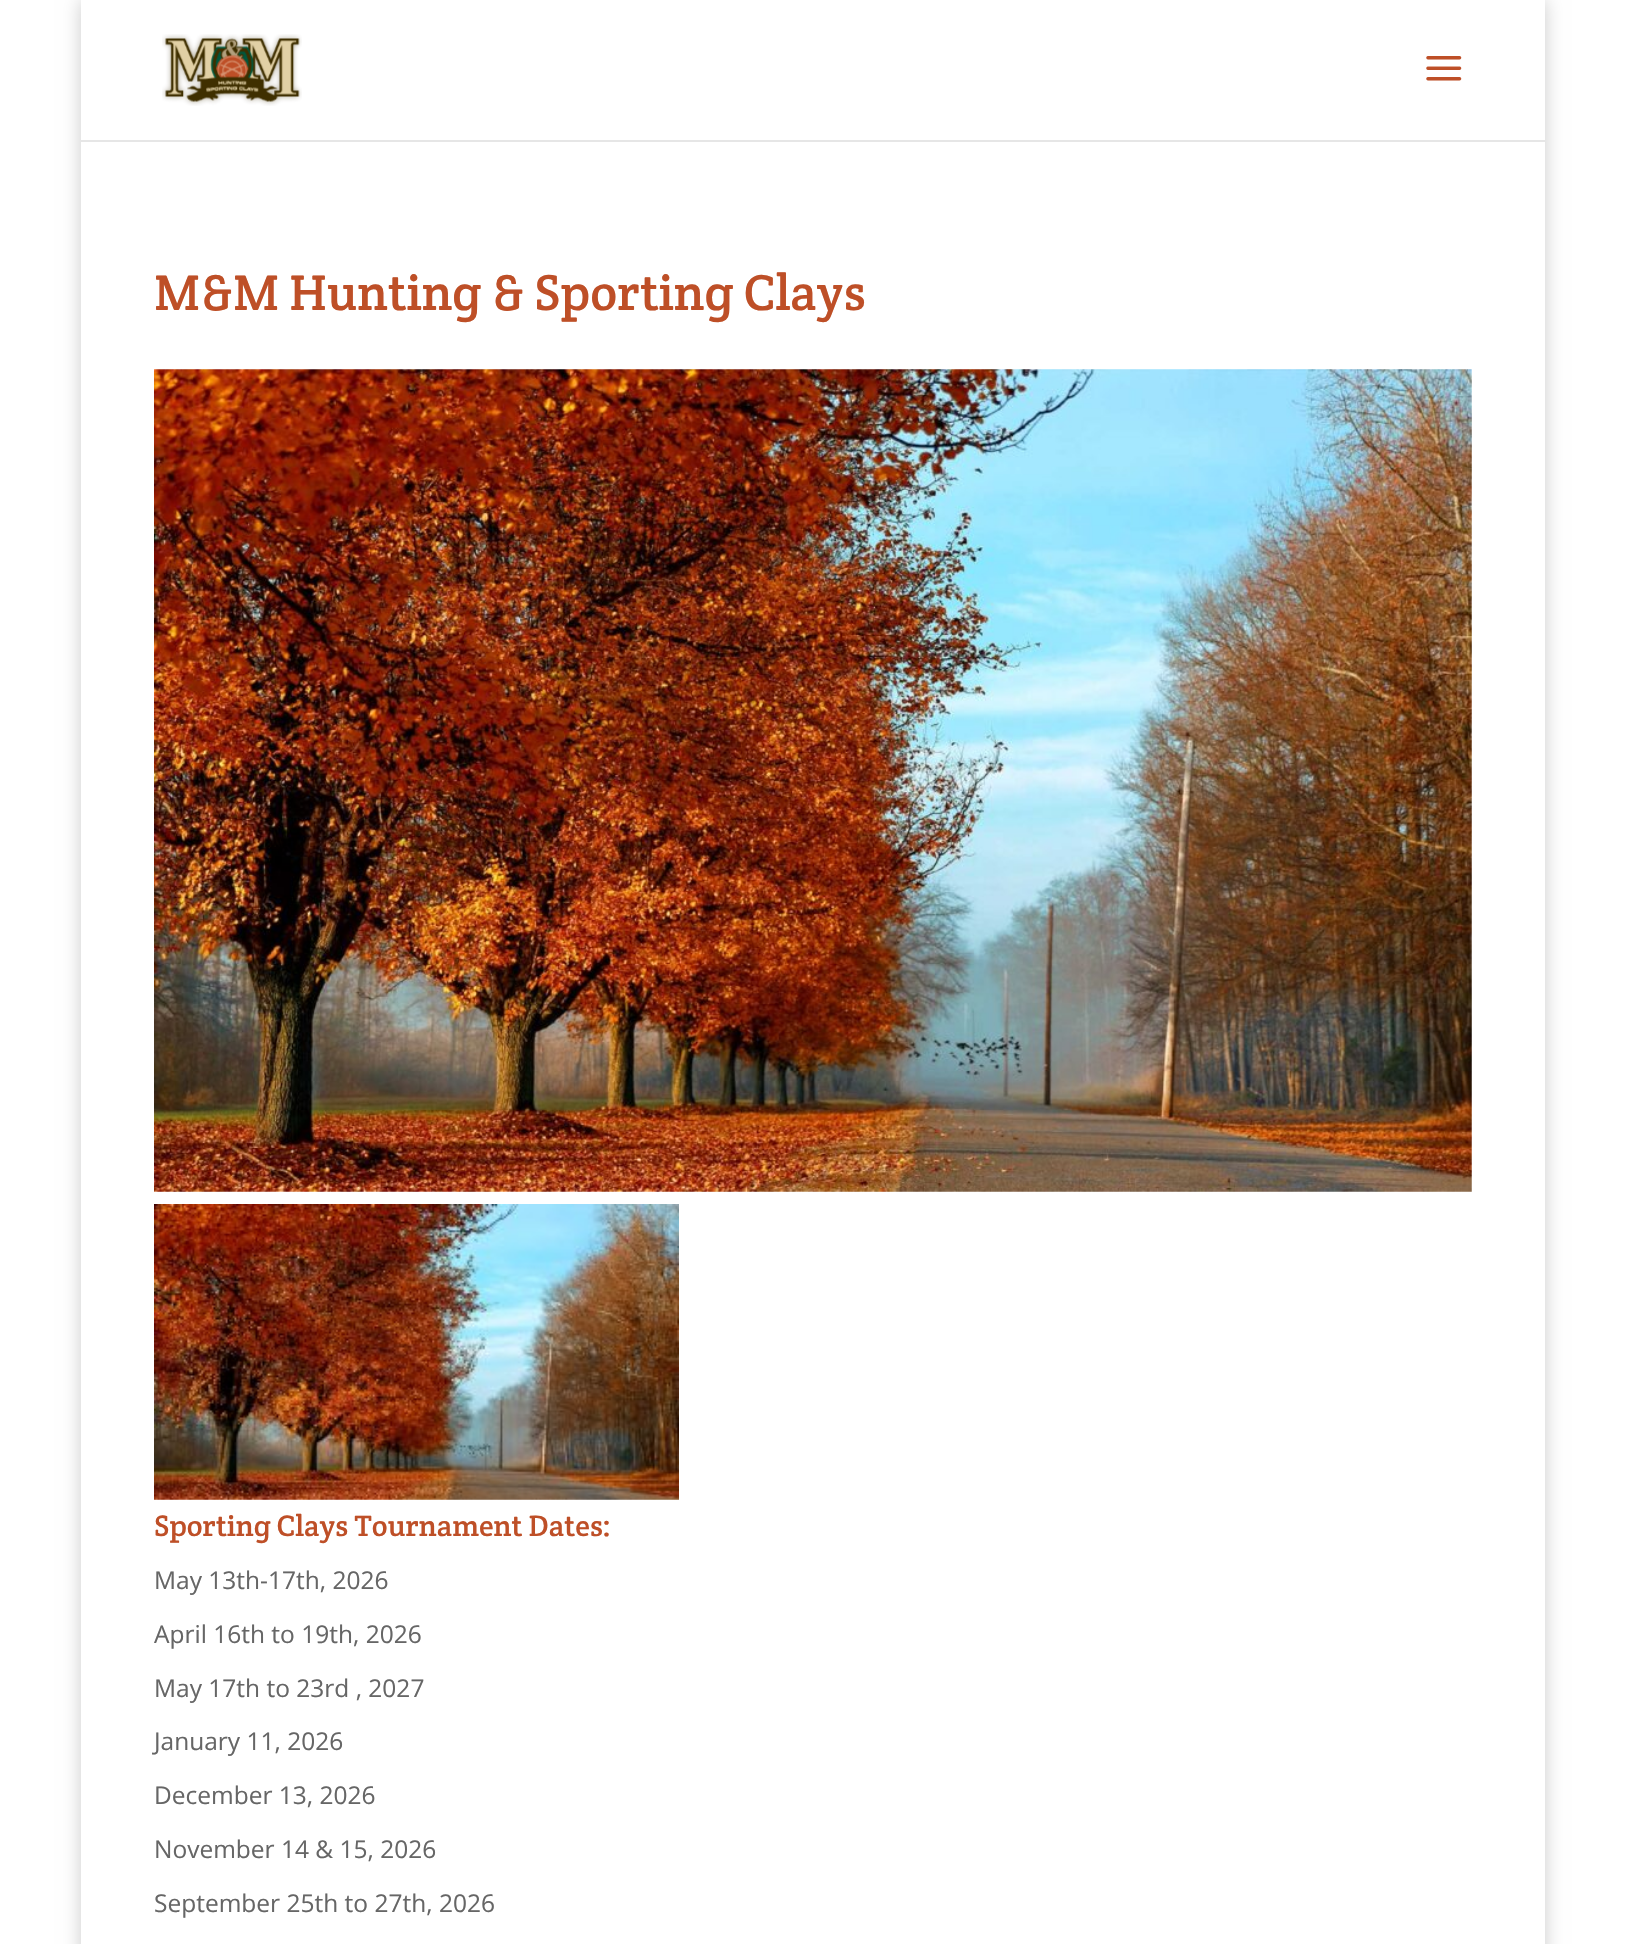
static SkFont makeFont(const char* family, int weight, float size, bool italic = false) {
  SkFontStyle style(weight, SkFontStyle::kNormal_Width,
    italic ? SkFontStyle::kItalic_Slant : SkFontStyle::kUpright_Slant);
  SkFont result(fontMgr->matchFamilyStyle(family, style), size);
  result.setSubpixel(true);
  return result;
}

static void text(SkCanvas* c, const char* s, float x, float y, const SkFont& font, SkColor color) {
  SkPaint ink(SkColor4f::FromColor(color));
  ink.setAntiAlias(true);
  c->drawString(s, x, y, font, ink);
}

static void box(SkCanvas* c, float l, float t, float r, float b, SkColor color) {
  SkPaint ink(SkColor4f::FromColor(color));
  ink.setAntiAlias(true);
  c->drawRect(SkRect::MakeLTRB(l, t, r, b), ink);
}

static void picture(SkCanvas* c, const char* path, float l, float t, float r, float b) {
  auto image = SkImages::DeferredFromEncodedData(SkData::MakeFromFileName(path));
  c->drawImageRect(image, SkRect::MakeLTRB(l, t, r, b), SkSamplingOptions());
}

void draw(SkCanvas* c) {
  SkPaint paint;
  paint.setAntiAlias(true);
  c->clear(0xffffffff);
  c->save();
  c->clipPath(SkPathBuilder(SkPathFillType::kEvenOdd).moveTo(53, 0).lineTo(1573, 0).lineTo(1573, 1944).lineTo(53, 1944).close().moveTo(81, 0).lineTo(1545, 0).lineTo(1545, 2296).lineTo(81, 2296).close().detach(), true);
  paint.setColor(0x33000000);
  paint.setMaskFilter(SkMaskFilter::MakeBlur(kNormal_SkBlurStyle, 9));
  c->drawRect(SkRect::MakeLTRB(81, 0, 1545, 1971), paint);
  paint.setMaskFilter(nullptr);
  c->restore();
  box(c, 81, 140, 1545, 142, 0xffe6e6e6);
  picture(c, "img_01.png", 162, 34, 302, 106);
  picture(c, "img_02.png", 1426, 56, 1462, 81);
  SkFont face1 = makeFont("Crete Round", 400, 50.75f);
  text(c, "M&M Hunting & Sporting Clays", 154, 310, face1, 0xffbe4f27);
  picture(c, "img_03.png", 154, 369, 1472, 1192);
  picture(c, "img_04.png", 154, 1204, 679, 1500);
  SkFont face2 = makeFont("Crete Round", 400, 29.75f);
  text(c, "Sporting Clays Tournament Dates:", 154, 1536, face2, 0xffbe4f27);
  SkFont face3 = makeFont("Open Sans", 400, 24.5f);
  text(c, "May 13th-17th, 2026", 154, 1589, face3, 0xff666666);
  text(c, "April 16th to 19th, 2026", 154, 1643, face3, 0xff666666);
  text(c, "May 17th to 23rd , 2027", 154, 1697, face3, 0xff666666);
  text(c, "January 11, 2026", 154, 1750, face3, 0xff666666);
  text(c, "December 13, 2026", 154, 1804, face3, 0xff666666);
  text(c, "November 14 & 15, 2026", 154, 1858, face3, 0xff666666);
  text(c, "September 25th to 27th, 2026", 154, 1912, face3, 0xff666666);
}
